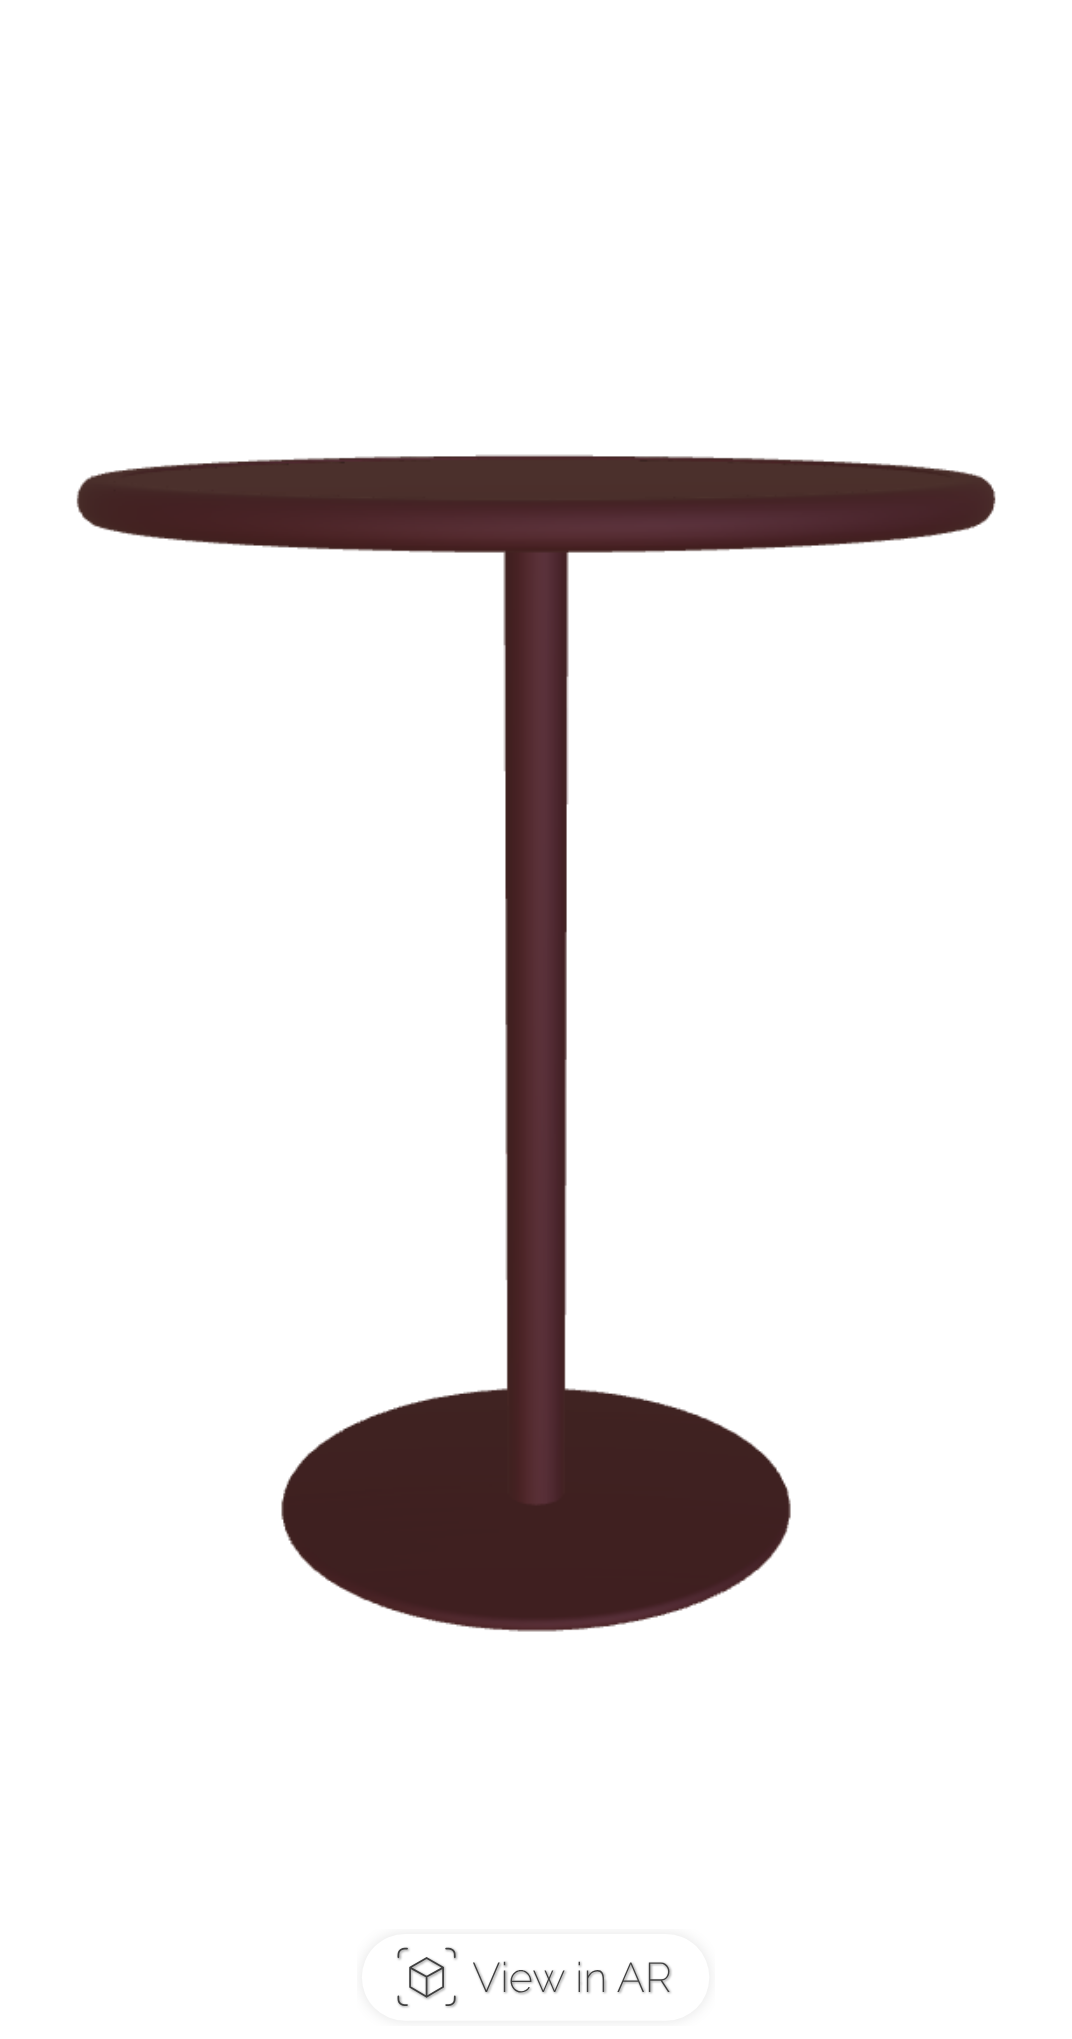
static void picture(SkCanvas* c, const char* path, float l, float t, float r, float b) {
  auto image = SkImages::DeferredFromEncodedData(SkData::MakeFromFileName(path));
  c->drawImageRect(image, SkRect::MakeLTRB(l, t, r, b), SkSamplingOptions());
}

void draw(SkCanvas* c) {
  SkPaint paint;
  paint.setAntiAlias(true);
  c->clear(0xffffffff);
  picture(c, "img_01.png", 76, 454, 996, 1632);
  picture(c, "img_02.png", 357, 1929, 715, 2026);
}
